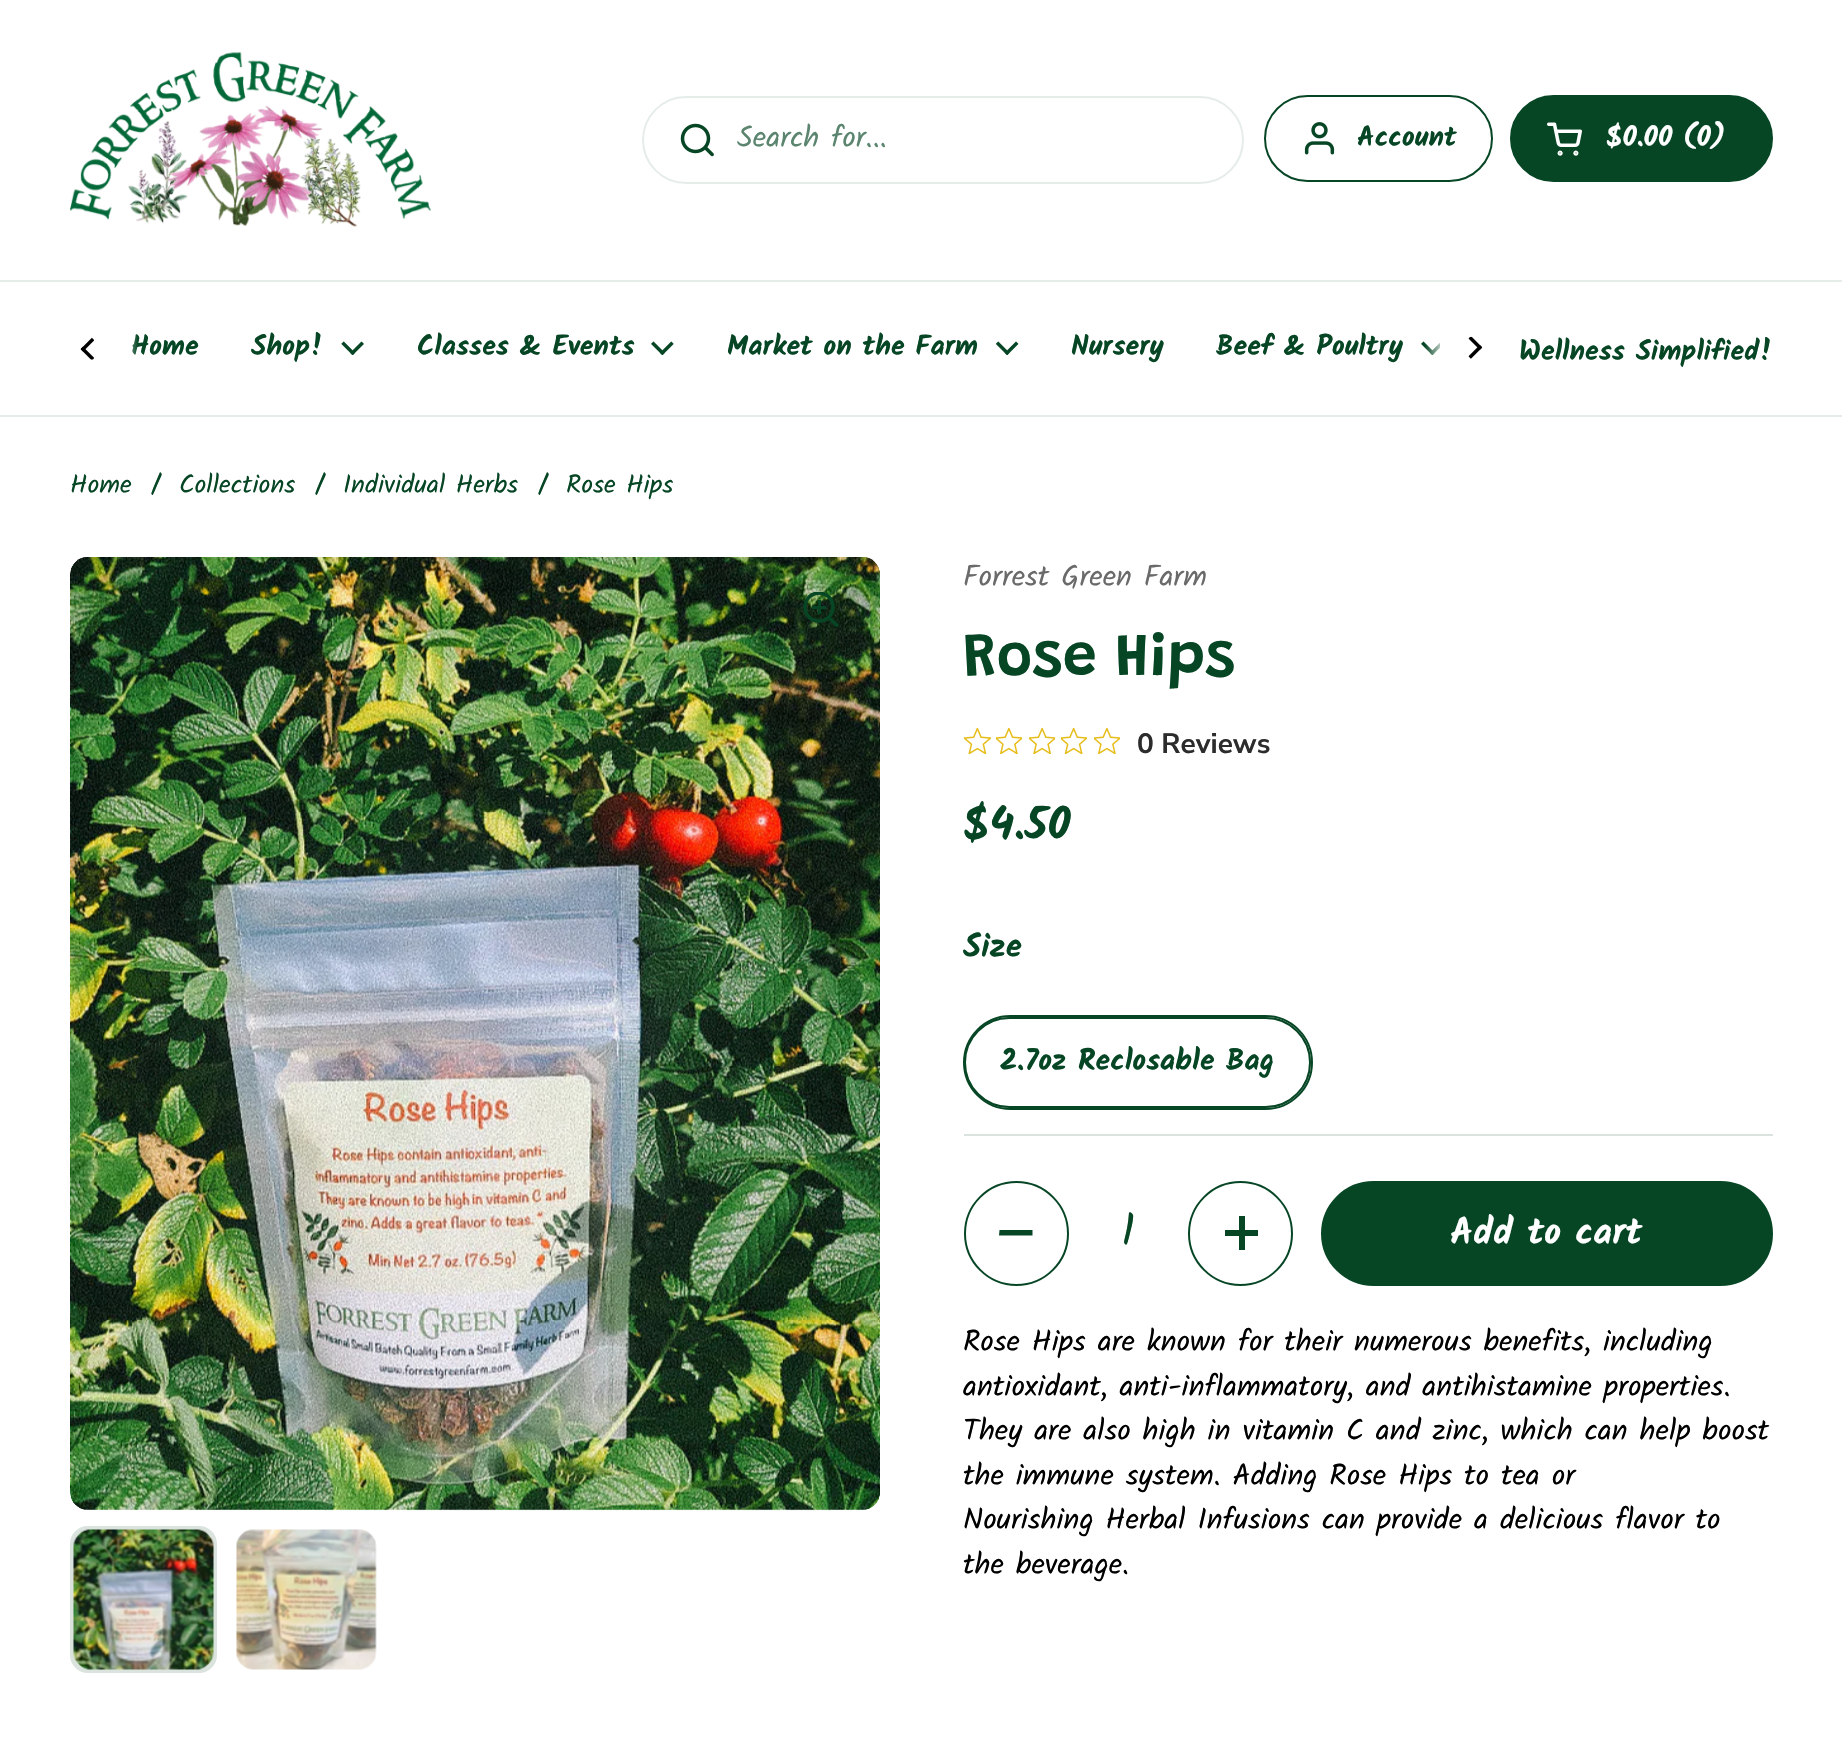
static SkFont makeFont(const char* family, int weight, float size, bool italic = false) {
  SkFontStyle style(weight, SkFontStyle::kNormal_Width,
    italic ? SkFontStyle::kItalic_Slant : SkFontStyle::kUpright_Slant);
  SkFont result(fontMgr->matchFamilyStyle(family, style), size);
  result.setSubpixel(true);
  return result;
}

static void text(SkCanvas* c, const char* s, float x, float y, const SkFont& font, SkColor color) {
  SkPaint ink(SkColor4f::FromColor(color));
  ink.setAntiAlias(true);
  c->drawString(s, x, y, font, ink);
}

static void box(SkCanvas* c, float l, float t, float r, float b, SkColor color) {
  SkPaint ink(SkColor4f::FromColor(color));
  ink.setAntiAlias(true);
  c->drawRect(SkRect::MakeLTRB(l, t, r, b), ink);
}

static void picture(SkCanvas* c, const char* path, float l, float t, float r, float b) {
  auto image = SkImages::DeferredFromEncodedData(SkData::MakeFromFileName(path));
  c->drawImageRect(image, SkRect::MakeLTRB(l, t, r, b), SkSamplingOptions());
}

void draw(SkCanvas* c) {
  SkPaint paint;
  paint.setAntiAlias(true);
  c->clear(0xffffffff);
  box(c, 0, 280, 1842, 282, 0xffe6ede9);
  picture(c, "img_01.png", 70, 52, 431, 228);
  paint.setStyle(SkPaint::kStroke_Style);
  paint.setStrokeWidth(2);
  paint.setColor(0xffe6ede9);
  c->drawRoundRect(SkRect::MakeLTRB(643, 97, 1243, 183), 43, 43, paint);
  picture(c, "img_02.png", 680, 123, 714, 157);
  SkFont face1 = makeFont("Kalam", 400, 29.75f);
  text(c, "Search for...", 737, 147, face1, 0xff5b856f);
  paint.setColor(0xff064625);
  c->drawRoundRect(SkRect::MakeLTRB(1265, 96, 1492, 181), 42.5f, 42.5f, paint);
  picture(c, "img_03.png", 1304, 122, 1335, 155);
  SkFont face2 = makeFont("Kalam", 700, 28);
  text(c, "Account", 1357, 146, face2, 0xff064625);
  paint.setStyle(SkPaint::kFill_Style);
  c->drawRoundRect(SkRect::MakeLTRB(1511, 96, 1772, 181), 42.5f, 42.5f, paint);
  paint.setStyle(SkPaint::kStroke_Style);
  c->drawRoundRect(SkRect::MakeLTRB(1511, 96, 1772, 181), 42.5f, 42.5f, paint);
  picture(c, "img_04.png", 1547, 122, 1582, 156);
  text(c, "$0.00 (0)", 1606, 146, face2, 0xffffffff);
  box(c, 0, 415, 1842, 417, 0xffe6ede9);
  picture(c, "img_05.png", 80, 337, 94, 360);
  text(c, "Home", 131, 355, face2, 0xff064625);
  paint.setStyle(SkPaint::kFill_Style);
  {
    const SkColor colors[] = {0xffffffff, 0x00ffffff};
    const float stops[] = {0.5f, 1};
    const SkPoint ends[] = {{95, 348}, {138, 348}};
    paint.setShader(SkGradientShader::MakeLinear(ends, colors, stops, 2, SkTileMode::kClamp));
    paint.setAlpha(255);
  }
  c->drawRect(SkRect::MakeLTRB(132, 334, 138, 355), paint);
  text(c, "Shop!", 251, 355, face2, 0xff064625);
  picture(c, "img_06.png", 341, 341, 364, 355);
  text(c, "Classes & Events", 417, 355, face2, 0xff064625);
  picture(c, "img_07.png", 651, 341, 674, 355);
  text(c, "Market on the Farm", 727, 355, face2, 0xff064625);
  picture(c, "img_08.png", 996, 341, 1019, 355);
  text(c, "Nursery", 1071, 355, face2, 0xff064625);
  text(c, "Beef & Poultry", 1216, 355, face2, 0xff064625);
  picture(c, "img_09.png", 1421, 341, 1440, 355);
  {
    const SkColor colors[] = {0xffffffff, 0x00ffffff};
    const float stops[] = {0.5f, 1};
    const SkPoint ends[] = {{1468, 348}, {1425, 348}};
    paint.setShader(SkGradientShader::MakeLinear(ends, colors, stops, 2, SkTileMode::kClamp));
    paint.setAlpha(255);
  }
  c->drawRect(SkRect::MakeLTRB(1425, 342, 1440, 355), paint);
  picture(c, "img_10.png", 1468, 336, 1483, 359);
  text(c, "Wellness Simplified!", 1519, 360, face2, 0xff064625);
  SkFont face3 = makeFont("Kalam", 400, 26);
  text(c, "Home", 70, 493, face3, 0xff064625);
  text(c, "/", 151, 493, face3, 0xff064625);
  text(c, "Collections", 179, 493, face3, 0xff064625);
  text(c, "/", 315, 493, face3, 0xff064625);
  text(c, "Individual Herbs", 343, 493, face3, 0xff064625);
  text(c, "/", 538, 493, face3, 0xff064625);
  text(c, "Rose Hips", 566, 493, face3, 0xff064625);
  picture(c, "img_11.png", 70, 557, 880, 1511);
  c->save();
  c->clipRect(SkRect::MakeLTRB(803, 592, 840, 628));
  paint.setStyle(SkPaint::kStroke_Style);
  paint.setStrokeWidth(3.5f);
  paint.setShader(nullptr);
  paint.setColor(0xff064625);
  c->drawCircle(819, 607, 14, paint);
  c->restore();
  box(c, 818, 600, 821, 614, 0xff064625);
  box(c, 812, 606, 826, 609, 0xff064625);
  paint.setStyle(SkPaint::kFill_Style);
  c->drawPath(SkPathBuilder().moveTo(828.5f, 619.5f).lineTo(830.5f, 617).lineTo(839, 625).lineTo(836.5f, 627.5f).close().detach(), paint);
  paint.setStyle(SkPaint::kStroke_Style);
  paint.setStrokeWidth(4);
  paint.setColor(0xffdae3de);
  c->drawRoundRect(SkRect::MakeLTRB(72, 1528, 215, 1671), 16, 16, paint);
  picture(c, "img_12.png", 73, 1529, 214, 1670);
  picture(c, "img_13.png", 236, 1529, 377, 1670);
  text(c, "Forrest Green Farm", 963, 586, face1, 0xff6a6a6a);
  SkFont face4 = makeFont("Grandstander", 600, 61.25f);
  text(c, "Rose Hips", 963, 675, face4, 0xff064625);
  picture(c, "img_14.png", 964, 728, 991, 754);
  picture(c, "img_15.png", 996, 728, 1022, 754);
  picture(c, "img_16.png", 1029, 728, 1055, 754);
  picture(c, "img_17.png", 1061, 728, 1087, 754);
  picture(c, "img_15.png", 1094, 728, 1120, 754);
  SkFont face5 = makeFont("Nunito Sans", 200, 28);
  text(c, "0 Reviews", 1137, 753, face5, 0xff2c2c2c);
  SkFont face6 = makeFont("Kalam", 700, 45);
  text(c, "$4.50", 963, 839, face6, 0xff064625);
  SkFont face7 = makeFont("Kalam", 700, 33);
  text(c, "Size", 963, 957, face7, 0xff064625);
  paint.setStrokeWidth(2);
  paint.setColor(0xff064625);
  c->drawRoundRect(SkRect::MakeLTRB(964, 1016, 1312, 1109), 46.5f, 46.5f, paint);
  c->drawRoundRect(SkRect::MakeLTRB(965, 1018, 1310, 1107), 44.5f, 44.5f, paint);
  SkFont face8 = makeFont("Kalam", 700, 29.75f);
  text(c, "2.7oz Reclosable Bag", 1000, 1070, face8, 0xff064625);
  box(c, 964, 1134, 1773, 1136, 0xffdae3de);
  c->drawCircle(1016.5f, 1233.5f, 51.5f, paint);
  paint.setStyle(SkPaint::kFill_Style);
  c->drawPath(SkPathBuilder().moveTo(1032.5f, 1230).lineTo(1032.5f, 1235.5f).lineTo(999, 1235.5f).lineTo(999.5f, 1230).close().detach(), paint);
  SkFont face9 = makeFont("Kalam", 400, 45);
  text(c, "1", 1121, 1245, face9, 0xff064625);
  paint.setStyle(SkPaint::kStroke_Style);
  c->drawCircle(1240.5f, 1233.5f, 51.5f, paint);
  box(c, 1239, 1216, 1245, 1250, 0xff064625);
  box(c, 1225, 1230, 1258, 1236, 0xff064625);
  paint.setStyle(SkPaint::kFill_Style);
  c->drawRoundRect(SkRect::MakeLTRB(1322, 1182, 1772, 1285), 51.5f, 51.5f, paint);
  paint.setStyle(SkPaint::kStroke_Style);
  c->drawRoundRect(SkRect::MakeLTRB(1322, 1182, 1772, 1285), 51.5f, 51.5f, paint);
  SkFont face10 = makeFont("Kalam", 700, 37);
  text(c, "Add to cart", 1450, 1244, face10, 0xffffffff);
  text(c, "Rose Hips are known for their numerous benefits, including", 963, 1351, face1, 0xff000000);
  text(c, "antioxidant, anti-inflammatory, and antihistamine properties.", 963, 1396, face1, 0xff000000);
  text(c, "They are also high in vitamin C and zinc, which can help boost", 963, 1440, face1, 0xff000000);
  text(c, "the immune system. Adding Rose Hips to tea or", 963, 1485, face1, 0xff000000);
  text(c, "Nourishing Herbal Infusions can provide a delicious flavor to", 963, 1529, face1, 0xff000000);
  text(c, "the beverage.", 963, 1574, face1, 0xff000000);
}
